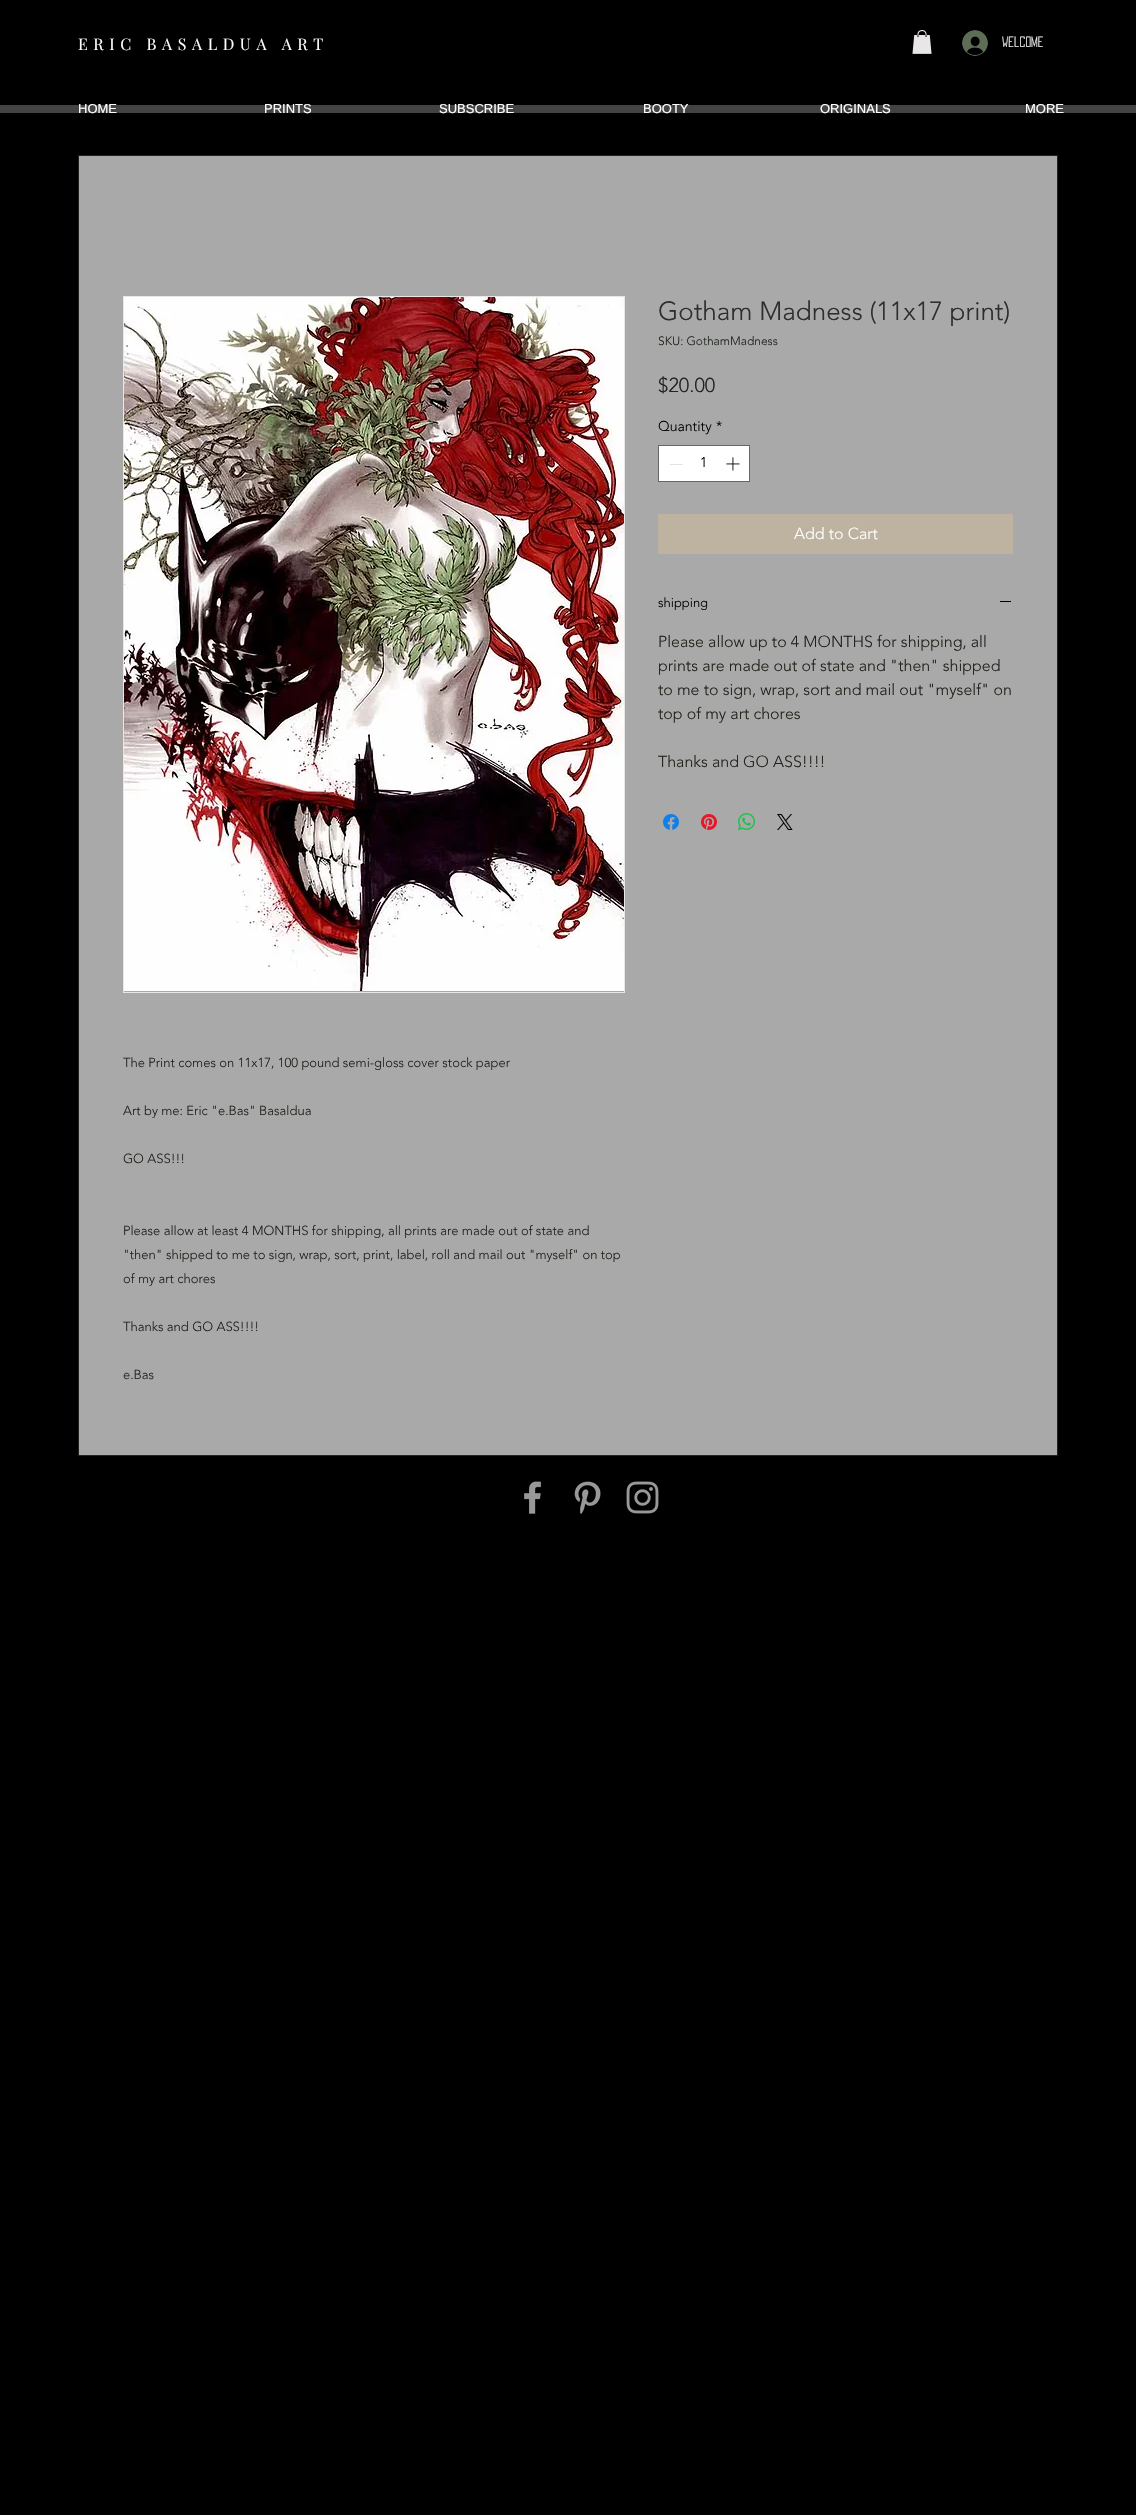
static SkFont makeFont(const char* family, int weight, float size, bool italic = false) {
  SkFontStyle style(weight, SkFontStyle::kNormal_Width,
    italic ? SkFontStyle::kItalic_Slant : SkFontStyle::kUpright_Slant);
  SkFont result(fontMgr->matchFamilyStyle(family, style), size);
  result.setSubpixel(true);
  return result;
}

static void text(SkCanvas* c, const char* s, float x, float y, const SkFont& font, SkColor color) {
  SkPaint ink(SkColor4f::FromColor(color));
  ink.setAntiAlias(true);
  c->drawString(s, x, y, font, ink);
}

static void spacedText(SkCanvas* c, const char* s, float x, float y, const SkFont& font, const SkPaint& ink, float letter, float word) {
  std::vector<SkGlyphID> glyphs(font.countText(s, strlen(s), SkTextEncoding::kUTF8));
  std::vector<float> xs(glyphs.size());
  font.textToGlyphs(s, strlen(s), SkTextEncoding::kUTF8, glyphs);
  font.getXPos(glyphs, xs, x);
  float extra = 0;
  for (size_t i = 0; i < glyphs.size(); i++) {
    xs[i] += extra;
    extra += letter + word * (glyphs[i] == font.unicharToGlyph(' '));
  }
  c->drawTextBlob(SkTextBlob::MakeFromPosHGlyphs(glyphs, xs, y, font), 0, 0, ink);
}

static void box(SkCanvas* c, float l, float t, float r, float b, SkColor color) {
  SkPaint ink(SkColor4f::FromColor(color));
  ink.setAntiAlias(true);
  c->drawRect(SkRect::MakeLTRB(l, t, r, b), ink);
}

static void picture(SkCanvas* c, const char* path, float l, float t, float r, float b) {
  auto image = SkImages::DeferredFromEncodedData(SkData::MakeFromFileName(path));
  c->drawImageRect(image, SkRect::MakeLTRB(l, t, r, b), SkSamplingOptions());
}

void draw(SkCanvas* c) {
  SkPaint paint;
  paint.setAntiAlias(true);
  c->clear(0xff000000);
  SkFont face1 = makeFont("Playfair Display", 400, 16);
  paint.setColor(0xffffffff);
  spacedText(c, "ERIC BASALDUA ART", 78, 50, face1, paint, 5.6f, 0);
  picture(c, "img_01.png", 912, 30, 932, 54);
  picture(c, "img_02.png", 962, 30, 988, 56);
  SkFont face2 = makeFont("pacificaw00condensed", 400, 13);
  text(c, "Welcome", 1002, 47, face2, 0xffe8e6e6);
  box(c, 0, 105, 1136, 113, 0xff434343);
  SkFont face3 = makeFont("Liberation Sans", 400, 13);
  text(c, "HOME", 78, 113, face3, 0xffffffff);
  text(c, "PRINTS", 264, 113, face3, 0xffffffff);
  text(c, "SUBSCRIBE", 439, 113, face3, 0xffffffff);
  text(c, "BOOTY", 643, 113, face3, 0xffffffff);
  text(c, "ORIGINALS", 820, 113, face3, 0xffffffff);
  text(c, "MORE", 1025, 113, face3, 0xffffffff);
  paint.setColor(0xffa9a9a9);
  c->drawRect(SkRect::MakeLTRB(78.5f, 155.5f, 1057.5f, 1455.5f), paint);
  paint.setStyle(SkPaint::kStroke_Style);
  paint.setStrokeWidth(1);
  paint.setColor(0xff1f241c);
  c->drawRect(SkRect::MakeLTRB(78.5f, 155.5f, 1057.5f, 1455.5f), paint);
  SkFont face4 = makeFont("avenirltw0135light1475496", 300, 26);
  text(c, "Gotham Madness (11x17 print)", 658, 320, face4, 0xff2e2e2e);
  SkFont face5 = makeFont("avenirltw0135light1475496", 300, 12);
  text(c, "SKU: GothamMadness", 658, 345, face5, 0xff1f241c);
  SkFont face6 = makeFont("avenirltw0135light1475496", 300, 20);
  text(c, "$20.00", 658, 392, face6, 0xff1f241c);
  SkFont face7 = makeFont("avenirltw0135light1475496", 300, 14);
  text(c, "Quantity", 658, 431, face7, 0xff000000);
  text(c, "*", 716, 431, face7, 0xff000000);
  paint.setStyle(SkPaint::kFill_Style);
  paint.setColor(0xffffffff);
  c->drawRect(SkRect::MakeLTRB(658.5f, 445.5f, 749.5f, 481.5f), paint);
  paint.setStyle(SkPaint::kStroke_Style);
  paint.setColor(0xff666666);
  c->drawRect(SkRect::MakeLTRB(658.5f, 445.5f, 749.5f, 481.5f), paint);
  box(c, 670, 464, 683, 465, 0xffe3e3e3);
  text(c, "1", 700, 467, face7, 0xff000000);
  picture(c, "img_03.png", 726, 457, 740, 471);
  box(c, 658, 514, 1013, 554, 0xffbeb2a1);
  SkFont face8 = makeFont("avenirltw0135light1475496", 300, 16);
  text(c, "Add to Cart", 794, 539, face8, 0xffffffff);
  SkFont face9 = makeFont("avenirltw0135light1475496", 300, 13);
  text(c, "shipping", 658, 607, face9, 0xff000000);
  box(c, 1000, 601, 1011, 602, 0xff000000);
  text(c, "Please allow up to 4 MONTHS for shipping, all", 658, 647, face8, 0xff1f241c);
  text(c, "prints are made out of state and \"then\" shipped", 658, 671, face8, 0xff1f241c);
  text(c, "to me to sign, wrap, sort and mail out \"myself\" on", 658, 695, face8, 0xff1f241c);
  text(c, "top of my art chores", 658, 719, face8, 0xff1f241c);
  text(c, "Thanks and GO ASS!!!!", 658, 767, face8, 0xff1f241c);
  picture(c, "img_04.png", 663, 814, 679, 830);
  picture(c, "img_05.png", 701, 814, 717, 830);
  picture(c, "img_06.png", 738, 813, 755, 830);
  picture(c, "img_07.png", 777, 814, 793, 830);
  paint.setColor(0xffe8e6e6);
  c->drawRect(SkRect::MakeLTRB(123.5f, 296.5f, 624.5f, 992.5f), paint);
  picture(c, "img_08.png", 124, 297, 624, 991);
  text(c, "The Print comes on 11x17, 100 pound semi-gloss cover stock paper", 123, 1067, face9, 0xff1f241c);
  text(c, "Art by me: Eric \"e.Bas\" Basaldua", 123, 1115, face9, 0xff1f241c);
  text(c, "GO ASS!!!", 123, 1163, face9, 0xff1f241c);
  text(c, "Please allow at least 4 MONTHS for shipping, all prints are made out of state and", 123, 1235, face9, 0xff1f241c);
  text(c, "\"then\" shipped to me to sign, wrap, sort, print, label, roll and mail out \"myself\" on top", 123, 1259, face9, 0xff1f241c);
  text(c, "of my art chores", 123, 1283, face9, 0xff1f241c);
  text(c, "Thanks and GO ASS!!!!", 123, 1331, face9, 0xff1f241c);
  text(c, "e.Bas", 123, 1379, face9, 0xff1f241c);
  picture(c, "img_09.png", 523, 1481, 542, 1514);
  picture(c, "img_10.png", 574, 1481, 601, 1514);
  picture(c, "img_11.png", 626, 1481, 659, 1514);
}
